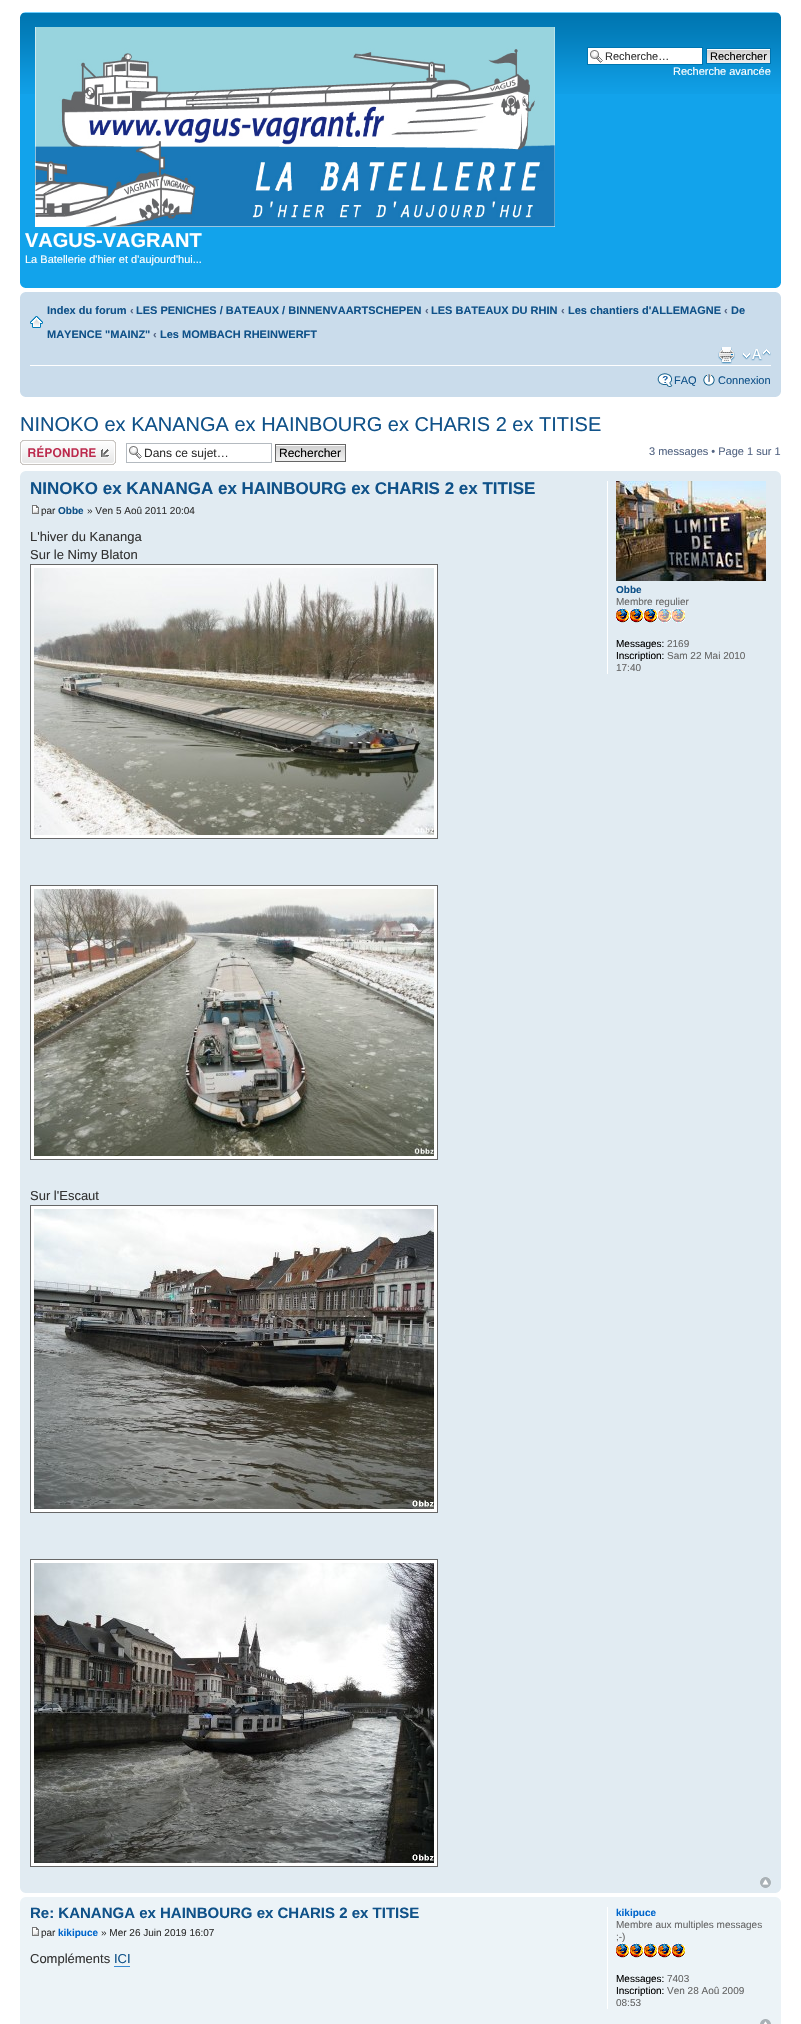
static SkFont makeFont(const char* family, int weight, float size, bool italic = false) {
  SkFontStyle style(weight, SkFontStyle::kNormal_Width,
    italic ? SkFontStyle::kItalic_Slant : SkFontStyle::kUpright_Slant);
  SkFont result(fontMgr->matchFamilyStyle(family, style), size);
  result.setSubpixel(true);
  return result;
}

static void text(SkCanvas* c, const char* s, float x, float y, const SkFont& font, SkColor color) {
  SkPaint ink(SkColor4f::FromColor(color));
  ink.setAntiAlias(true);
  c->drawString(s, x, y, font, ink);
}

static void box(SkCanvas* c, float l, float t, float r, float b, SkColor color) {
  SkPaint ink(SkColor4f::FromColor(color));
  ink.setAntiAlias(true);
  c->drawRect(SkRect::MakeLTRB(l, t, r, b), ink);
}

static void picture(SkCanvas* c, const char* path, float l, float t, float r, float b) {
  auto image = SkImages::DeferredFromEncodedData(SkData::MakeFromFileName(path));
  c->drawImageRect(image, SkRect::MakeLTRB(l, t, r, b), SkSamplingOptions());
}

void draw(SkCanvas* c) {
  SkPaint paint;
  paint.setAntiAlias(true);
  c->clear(0xffffffff);
  box(c, 20, 94, 781, 288, 0xff12a3eb);
  picture(c, "img_01.png", 20, 12, 781, 94);
  picture(c, "img_02.png", 20, 12, 25, 17);
  picture(c, "img_03.png", 776, 12, 781, 17);
  box(c, 588, 48, 702, 64, 0xffffffff);
  picture(c, "img_04.png", 590, 50, 603, 63);
  paint.setStyle(SkPaint::kStroke_Style);
  paint.setStrokeWidth(1);
  paint.setColor(0xff0075b0);
  c->drawRect(SkRect::MakeLTRB(587.5f, 47.5f, 702.5f, 64.5f), paint);
  SkFont face1 = makeFont("Liberation Sans", 400, 11);
  text(c, "Recherche…", 605, 60, face1, 0xff333333);
  picture(c, "img_05.png", 707, 49, 770, 63);
  c->drawRect(SkRect::MakeLTRB(706.5f, 48.5f, 770.5f, 63.5f), paint);
  text(c, "Rechercher", 710, 60, face1, 0xff000000);
  text(c, "Recherche avancée", 673, 75, face1, 0xffffffff);
  picture(c, "img_06.png", 35, 27, 555, 227);
  SkFont face2 = makeFont("Liberation Sans", 700, 20);
  text(c, "VAGUS-VAGRANT", 25, 247, face2, 0xffffffff);
  text(c, "La Batellerie d'hier et d'aujourd'hui...", 25, 263, face1, 0xffffffff);
  picture(c, "img_07.png", 20, 283, 25, 288);
  picture(c, "img_08.png", 776, 283, 781, 288);
  box(c, 20, 292, 781, 397, 0xffcadceb);
  picture(c, "img_09.png", 20, 292, 25, 297);
  picture(c, "img_10.png", 776, 292, 781, 297);
  box(c, 30, 365, 771, 366, 0xffffffff);
  picture(c, "img_11.png", 30, 316, 43, 328);
  SkFont face3 = makeFont("Liberation Sans", 700, 11);
  text(c, "Index du forum", 47, 314, face3, 0xff105289);
  text(c, "‹", 130, 314, face3, 0xff536482);
  text(c, "LES PENICHES / BATEAUX / BINNENVAARTSCHEPEN", 136, 314, face3, 0xff105289);
  text(c, "‹", 425, 314, face3, 0xff536482);
  text(c, "LES BATEAUX DU RHIN", 431, 314, face3, 0xff105289);
  text(c, "‹", 561, 314, face3, 0xff536482);
  text(c, "Les chantiers d'ALLEMAGNE", 568, 314, face3, 0xff105289);
  text(c, "‹", 724, 314, face3, 0xff536482);
  text(c, "De", 731, 314, face3, 0xff105289);
  text(c, "MAYENCE \"MAINZ\"", 47, 338, face3, 0xff105289);
  text(c, "‹", 153, 338, face3, 0xff536482);
  text(c, "Les MOMBACH RHEINWERFT", 160, 338, face3, 0xff105289);
  picture(c, "img_12.png", 718, 347, 735, 364);
  picture(c, "img_13.png", 742, 349, 771, 361);
  picture(c, "img_14.png", 657, 373, 673, 387);
  text(c, "FAQ", 674, 384, face1, 0xff105289);
  picture(c, "img_15.png", 703, 374, 715, 386);
  text(c, "Connexion", 718, 384, face1, 0xff105289);
  picture(c, "img_16.png", 20, 392, 25, 397);
  picture(c, "img_17.png", 776, 392, 781, 397);
  SkFont face4 = makeFont("Liberation Sans", 400, 20);
  text(c, "NINOKO ex KANANGA ex HAINBOURG ex CHARIS 2 ex TITISE", 20, 431, face4, 0xff105289);
  picture(c, "img_18.png", 20, 440, 116, 465);
  picture(c, "img_04.png", 129, 446, 142, 459);
  paint.setColor(0xffb4bac0);
  c->drawRect(SkRect::MakeLTRB(126.5f, 443.5f, 271.5f, 462.5f), paint);
  SkFont face5 = makeFont("Liberation Sans", 400, 12);
  text(c, "Dans ce sujet…", 144, 457, face5, 0xff333333);
  picture(c, "img_19.png", 276, 445, 345, 461);
  paint.setColor(0xff666666);
  c->drawRect(SkRect::MakeLTRB(275.5f, 444.5f, 345.5f, 461.5f), paint);
  text(c, "Rechercher", 279, 457, face5, 0xff000000);
  text(c, "3 messages • Page 1 sur 1", 649, 455, face1, 0xff536482);
  box(c, 20, 471, 781, 1893, 0xffe1ebf2);
  picture(c, "img_20.png", 20, 471, 25, 476);
  picture(c, "img_21.png", 776, 471, 781, 476);
  SkFont face6 = makeFont("Liberation Sans", 700, 17);
  text(c, "NINOKO ex KANANGA ex HAINBOURG ex CHARIS 2 ex TITISE", 30, 494, face6, 0xff105289);
  picture(c, "img_22.png", 32, 505, 39, 514);
  SkFont face7 = makeFont("Liberation Sans", 400, 10);
  text(c, "par", 41, 514, face7, 0xff333333);
  SkFont face8 = makeFont("Liberation Sans", 700, 10);
  text(c, "Obbe", 58, 514, face8, 0xff105289);
  text(c, "» Ven 5 Aoû 2011 20:04", 87, 514, face7, 0xff333333);
  SkFont face9 = makeFont("Liberation Sans", 400, 13);
  text(c, "L'hiver du Kananga", 30, 541, face9, 0xff333333);
  text(c, "Sur le Nimy Blaton", 30, 559, face9, 0xff333333);
  paint.setStyle(SkPaint::kFill_Style);
  paint.setColor(0xffffffff);
  c->drawRect(SkRect::MakeLTRB(30.5f, 564.5f, 437.5f, 838.5f), paint);
  paint.setStyle(SkPaint::kStroke_Style);
  paint.setColor(0xff666666);
  c->drawRect(SkRect::MakeLTRB(30.5f, 564.5f, 437.5f, 838.5f), paint);
  picture(c, "img_23.png", 34, 568, 434, 835);
  paint.setStyle(SkPaint::kFill_Style);
  paint.setColor(0xffffffff);
  c->drawRect(SkRect::MakeLTRB(30.5f, 885.5f, 437.5f, 1159.5f), paint);
  paint.setStyle(SkPaint::kStroke_Style);
  paint.setColor(0xff666666);
  c->drawRect(SkRect::MakeLTRB(30.5f, 885.5f, 437.5f, 1159.5f), paint);
  picture(c, "img_24.png", 34, 889, 434, 1156);
  text(c, "Sur l'Escaut", 30, 1200, face9, 0xff333333);
  paint.setStyle(SkPaint::kFill_Style);
  paint.setColor(0xffffffff);
  c->drawRect(SkRect::MakeLTRB(30.5f, 1205.5f, 437.5f, 1512.5f), paint);
  paint.setStyle(SkPaint::kStroke_Style);
  paint.setColor(0xff666666);
  c->drawRect(SkRect::MakeLTRB(30.5f, 1205.5f, 437.5f, 1512.5f), paint);
  picture(c, "img_25.png", 34, 1209, 434, 1509);
  paint.setStyle(SkPaint::kFill_Style);
  paint.setColor(0xffffffff);
  c->drawRect(SkRect::MakeLTRB(30.5f, 1559.5f, 437.5f, 1866.5f), paint);
  paint.setStyle(SkPaint::kStroke_Style);
  paint.setColor(0xff666666);
  c->drawRect(SkRect::MakeLTRB(30.5f, 1559.5f, 437.5f, 1866.5f), paint);
  picture(c, "img_26.png", 34, 1563, 434, 1863);
  box(c, 607, 481, 608, 674, 0xffffffff);
  picture(c, "img_27.png", 616, 481, 766, 581);
  text(c, "Obbe", 616, 593, face8, 0xff105289);
  text(c, "Membre regulier", 616, 605, face7, 0xff666666);
  picture(c, "img_28.png", 616, 608, 685, 623);
  text(c, "Messages:", 616, 647, face7, 0xff000000);
  text(c, "2169", 667, 647, face7, 0xff666666);
  text(c, "Inscription:", 616, 659, face7, 0xff000000);
  text(c, "Sam 22 Mai 2010", 667, 659, face7, 0xff666666);
  text(c, "17:40", 616, 671, face7, 0xff666666);
  picture(c, "img_29.png", 760, 1877, 771, 1888);
  picture(c, "img_30.png", 20, 1888, 25, 1893);
  picture(c, "img_31.png", 776, 1888, 781, 1893);
  box(c, 20, 1897, 781, 2024, 0xffecf3f7);
  picture(c, "img_32.png", 20, 1897, 25, 1902);
  picture(c, "img_33.png", 776, 1897, 781, 1902);
  SkFont face10 = makeFont("Liberation Sans", 700, 15);
  text(c, "Re: KANANGA ex HAINBOURG ex CHARIS 2 ex TITISE", 30, 1918, face10, 0xff105289);
  picture(c, "img_34.png", 32, 1927, 39, 1936);
  text(c, "par", 41, 1936, face7, 0xff333333);
  text(c, "kikipuce", 58, 1936, face8, 0xff0066cc);
  text(c, "» Mer 26 Juin 2019 16:07", 101, 1936, face7, 0xff333333);
  text(c, "Compléments", 30, 1963, face9, 0xff333333);
  text(c, "ICI", 114, 1963, face9, 0xff105289);
  box(c, 114, 1966, 130, 1967, 0xff368ad2);
  box(c, 607, 1907, 608, 2009, 0xffffffff);
  text(c, "kikipuce", 616, 1916, face8, 0xff0066cc);
  text(c, "Membre aux multiples messages", 616, 1928, face7, 0xff666666);
  text(c, ";-)", 616, 1940, face7, 0xff666666);
  picture(c, "img_35.png", 616, 1943, 685, 1958);
  text(c, "Messages:", 616, 1982, face7, 0xff000000);
  text(c, "7403", 667, 1982, face7, 0xff666666);
  text(c, "Inscription:", 616, 1994, face7, 0xff000000);
  text(c, "Ven 28 Aoû 2009", 667, 1994, face7, 0xff666666);
  text(c, "08:53", 616, 2006, face7, 0xff666666);
  picture(c, "img_36.png", 760, 2019, 771, 2024);
}
